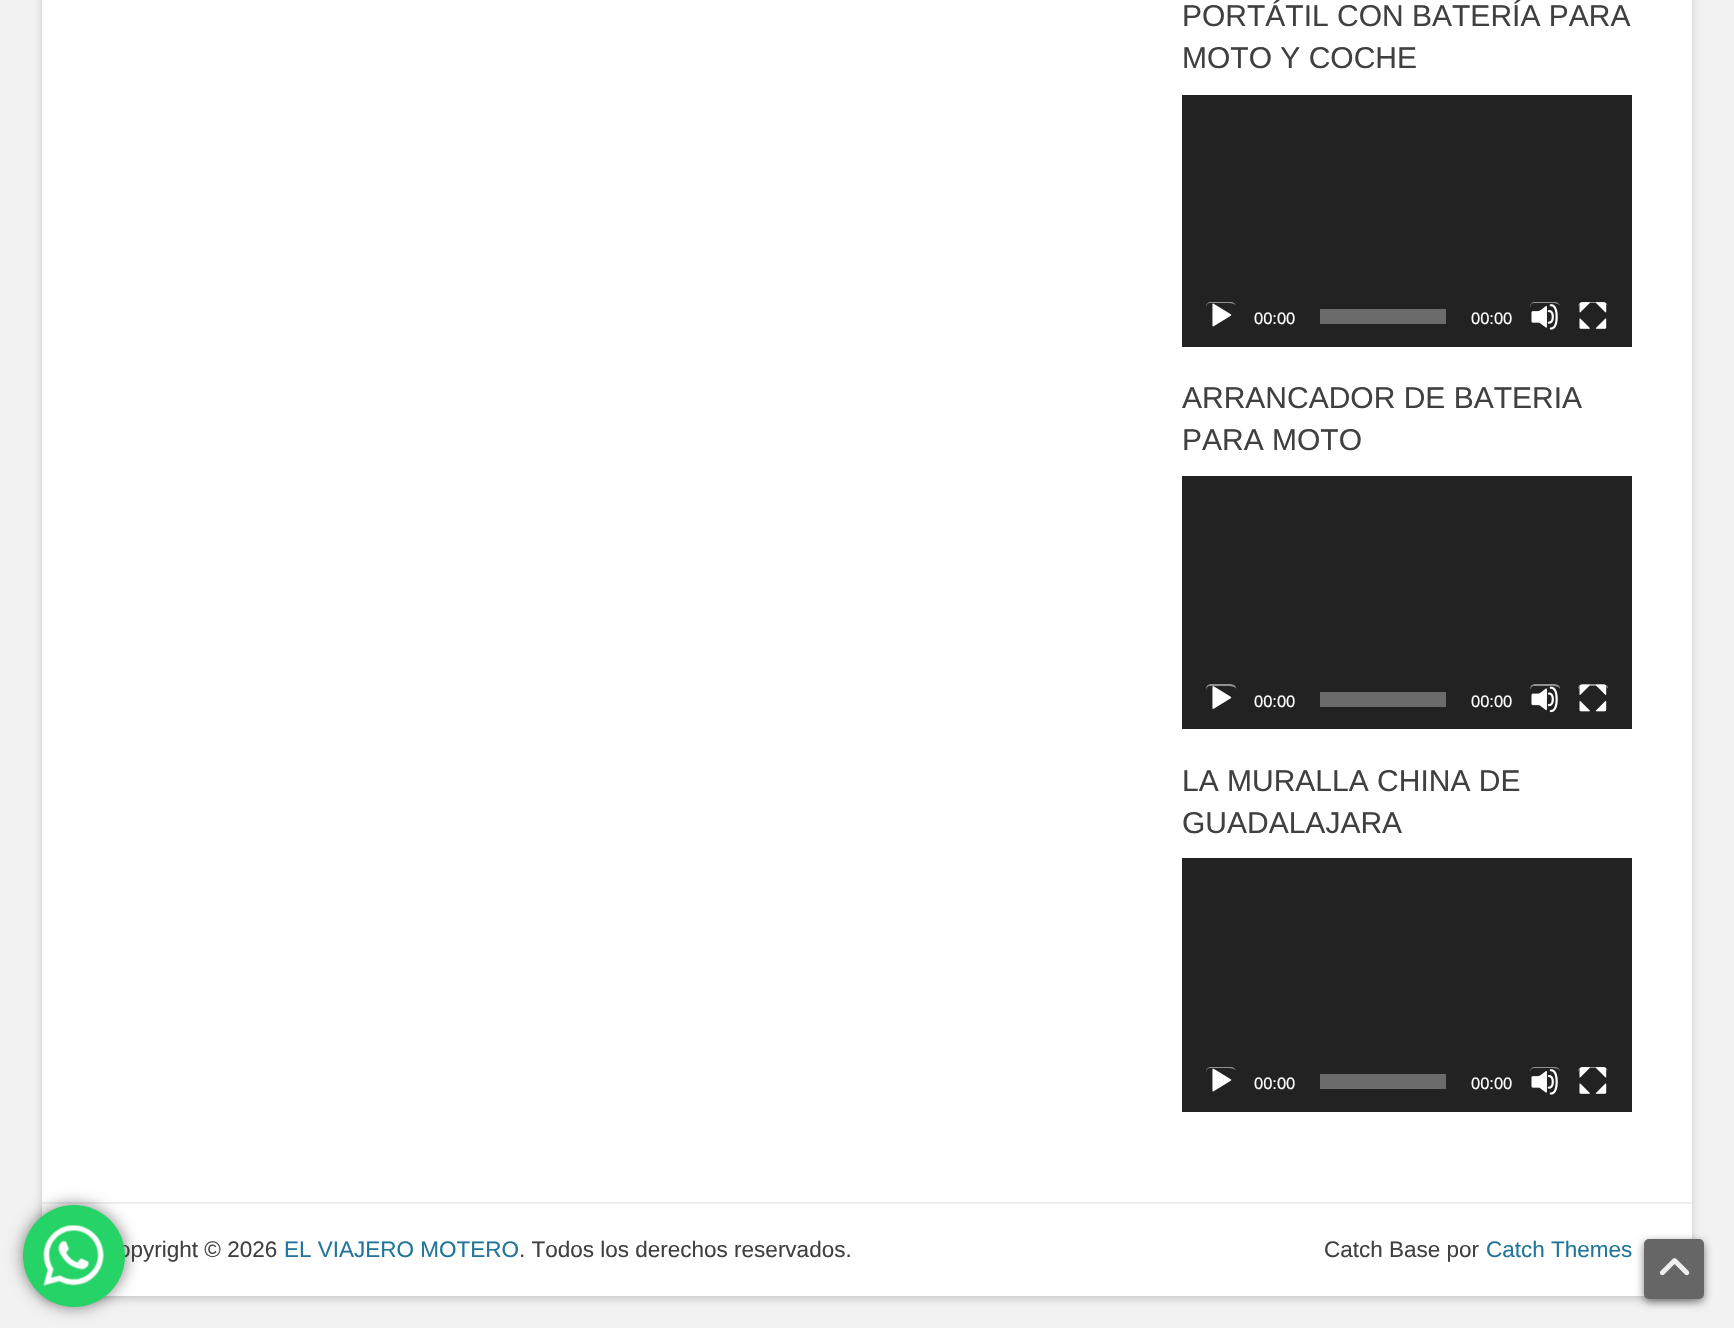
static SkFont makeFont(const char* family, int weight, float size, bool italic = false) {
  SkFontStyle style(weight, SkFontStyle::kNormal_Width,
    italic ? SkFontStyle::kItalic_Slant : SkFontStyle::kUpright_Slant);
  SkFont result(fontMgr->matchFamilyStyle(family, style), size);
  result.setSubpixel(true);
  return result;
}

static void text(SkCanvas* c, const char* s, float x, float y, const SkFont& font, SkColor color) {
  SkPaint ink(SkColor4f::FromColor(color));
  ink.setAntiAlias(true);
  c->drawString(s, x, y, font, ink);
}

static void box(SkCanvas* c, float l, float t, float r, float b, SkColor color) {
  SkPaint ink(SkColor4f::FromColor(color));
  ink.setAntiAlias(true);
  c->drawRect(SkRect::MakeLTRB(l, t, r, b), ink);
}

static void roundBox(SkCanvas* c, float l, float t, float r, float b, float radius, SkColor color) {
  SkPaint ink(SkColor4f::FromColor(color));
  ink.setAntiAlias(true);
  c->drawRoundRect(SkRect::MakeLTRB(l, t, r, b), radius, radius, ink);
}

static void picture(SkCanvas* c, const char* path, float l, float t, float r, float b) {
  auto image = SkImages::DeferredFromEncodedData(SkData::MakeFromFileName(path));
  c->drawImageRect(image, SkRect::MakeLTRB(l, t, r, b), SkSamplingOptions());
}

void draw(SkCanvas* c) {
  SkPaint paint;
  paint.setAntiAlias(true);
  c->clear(0xfff2f2f2);
  paint.setColor(0x4d646464);
  paint.setMaskFilter(SkMaskFilter::MakeBlur(kNormal_SkBlurStyle, 4.5f));
  c->drawRoundRect(SkRect::MakeLTRB(42, -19, 1692, 1299), 5, 5, paint);
  paint.setMaskFilter(nullptr);
  roundBox(c, 42, -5, 1692, 1296, 5, 0xffffffff);
  box(c, 42, 1202, 1692, 1204, 0xffeeeeee);
  paint.setColor(0x80000000);
  paint.setMaskFilter(SkMaskFilter::MakeBlur(kNormal_SkBlurStyle, 8));
  c->drawRoundRect(SkRect::MakeLTRB(23, 1205, 125, 1307), 51, 51, paint);
  paint.setMaskFilter(nullptr);
  SkFont face1 = makeFont("Liberation Sans", 400, 22.5f);
  text(c, "opyright © 2026", 118, 1257, face1, 0xff404040);
  paint.setColor(0xff25d366);
  c->drawCircle(74, 1256, 51, paint);
  picture(c, "img_01.png", 43, 1225, 104, 1286);
  SkFont face2 = makeFont("Liberation Sans", 400, 30);
  text(c, "PORTÁTIL CON BATERÍA PARA", 1182, 26, face2, 0xff404040);
  text(c, "MOTO Y COCHE", 1182, 68, face2, 0xff404040);
  box(c, 1182, 95, 1632, 347, 0xff222222);
  picture(c, "img_02.png", 1212, 303, 1232, 327);
  paint.setColor(0xff919191);
  c->drawPath(SkPathBuilder().moveTo(1210, 303).lineTo(1228, 303).cubicTo(1233, 303, 1235, 304, 1236, 306).cubicTo(1235.5f, 304, 1233.5f, 302, 1231, 302).lineTo(1211, 302).cubicTo(1208, 302, 1206, 304, 1206, 307).cubicTo(1206.5f, 305, 1207.5f, 303, 1210, 303).close().detach(), paint);
  SkFont face3 = makeFont("Liberation Sans", 400, 16.5f);
  text(c, "00:00", 1254, 324, face3, 0xffffffff);
  box(c, 1320, 309, 1446, 324, 0xff6b6b6b);
  text(c, "00:00", 1471, 324, face3, 0xffffffff);
  picture(c, "img_03.png", 1531, 304, 1558, 330);
  c->drawPath(SkPathBuilder().moveTo(1534, 303).lineTo(1552, 303).cubicTo(1557, 303, 1559, 304, 1560, 306).cubicTo(1559.5f, 304, 1557.5f, 302, 1555, 302).lineTo(1535, 302).cubicTo(1532, 302, 1530, 304, 1530, 307).cubicTo(1530.5f, 305, 1531.5f, 303, 1534, 303).close().detach(), paint);
  picture(c, "img_04.png", 1579, 302, 1607, 329);
  paint.setColor(0x80ffffff);
  c->drawPath(SkPathBuilder().moveTo(1582, 303).lineTo(1600, 303).cubicTo(1605, 303, 1607, 304, 1608, 306).cubicTo(1607.5f, 304, 1605.5f, 302, 1603, 302).lineTo(1583, 302).cubicTo(1580, 302, 1578, 304, 1578, 307).cubicTo(1578.5f, 305, 1579.5f, 303, 1582, 303).close().detach(), paint);
  text(c, "ARRANCADOR DE BATERIA", 1182, 408, face2, 0xff404040);
  text(c, "PARA MOTO", 1182, 450, face2, 0xff404040);
  box(c, 1182, 476, 1632, 729, 0xff222222);
  picture(c, "img_05.png", 1212, 686, 1232, 709);
  paint.setColor(0xff919191);
  c->drawPath(SkPathBuilder().moveTo(1210, 686).lineTo(1228, 686).cubicTo(1233, 686, 1235.5f, 687, 1236, 689).cubicTo(1236, 684, 1231.5f, 684, 1227.5f, 684).lineTo(1214.5f, 684).cubicTo(1209.5f, 684, 1206, 684, 1206, 690).cubicTo(1206.5f, 688, 1207.5f, 686, 1210, 686).close().detach(), paint);
  text(c, "00:00", 1254, 707, face3, 0xffffffff);
  box(c, 1320, 692, 1446, 707, 0xff6b6b6b);
  text(c, "00:00", 1471, 707, face3, 0xffffffff);
  picture(c, "img_06.png", 1531, 686, 1558, 713);
  c->drawPath(SkPathBuilder().moveTo(1534, 686).lineTo(1552, 686).cubicTo(1557, 686, 1559.5f, 687, 1560, 689).cubicTo(1560, 684, 1555.5f, 684, 1551.5f, 684).lineTo(1538.5f, 684).cubicTo(1533.5f, 684, 1530, 684, 1530, 690).cubicTo(1530.5f, 688, 1531.5f, 686, 1534, 686).close().detach(), paint);
  picture(c, "img_07.png", 1579, 684, 1607, 712);
  paint.setColor(0x80ffffff);
  c->drawPath(SkPathBuilder().moveTo(1582, 686).lineTo(1600, 686).cubicTo(1605, 686, 1607.5f, 687, 1608, 689).cubicTo(1608, 684, 1603.5f, 684, 1599.5f, 684).lineTo(1586.5f, 684).cubicTo(1581.5f, 684, 1578, 684, 1578, 690).cubicTo(1578.5f, 688, 1579.5f, 686, 1582, 686).close().detach(), paint);
  text(c, "LA MURALLA CHINA DE", 1182, 791, face2, 0xff404040);
  text(c, "GUADALAJARA", 1182, 833, face2, 0xff404040);
  box(c, 1182, 858, 1632, 1112, 0xff222222);
  picture(c, "img_02.png", 1212, 1068, 1232, 1092);
  paint.setColor(0xff919191);
  c->drawPath(SkPathBuilder().moveTo(1210, 1068).lineTo(1228, 1068).cubicTo(1233, 1068, 1235, 1069, 1236, 1071).cubicTo(1235.5f, 1069, 1233.5f, 1067, 1231, 1067).lineTo(1211, 1067).cubicTo(1208, 1067, 1206, 1069, 1206, 1072).cubicTo(1206.5f, 1070, 1207.5f, 1068, 1210, 1068).close().detach(), paint);
  text(c, "00:00", 1254, 1089, face3, 0xffffffff);
  box(c, 1320, 1074, 1446, 1089, 0xff6b6b6b);
  text(c, "00:00", 1471, 1089, face3, 0xffffffff);
  picture(c, "img_03.png", 1531, 1069, 1558, 1095);
  c->drawPath(SkPathBuilder().moveTo(1534, 1068).lineTo(1552, 1068).cubicTo(1557, 1068, 1559, 1069, 1560, 1071).cubicTo(1559.5f, 1069, 1557.5f, 1067, 1555, 1067).lineTo(1535, 1067).cubicTo(1532, 1067, 1530, 1069, 1530, 1072).cubicTo(1530.5f, 1070, 1531.5f, 1068, 1534, 1068).close().detach(), paint);
  picture(c, "img_04.png", 1579, 1067, 1607, 1094);
  paint.setColor(0x80ffffff);
  c->drawPath(SkPathBuilder().moveTo(1582, 1068).lineTo(1600, 1068).cubicTo(1605, 1068, 1607, 1069, 1608, 1071).cubicTo(1607.5f, 1069, 1605.5f, 1067, 1603, 1067).lineTo(1583, 1067).cubicTo(1580, 1067, 1578, 1069, 1578, 1072).cubicTo(1578.5f, 1070, 1579.5f, 1068, 1582, 1068).close().detach(), paint);
  text(c, "EL VIAJERO MOTERO", 284, 1257, face1, 0xff21759b);
  text(c, ". Todos los derechos reservados.", 519, 1257, face1, 0xff404040);
  text(c, "Catch Base por", 1324, 1257, face1, 0xff404040);
  text(c, "Catch Themes", 1486, 1257, face1, 0xff21759b);
  paint.setColor(0x80000000);
  paint.setMaskFilter(SkMaskFilter::MakeBlur(kNormal_SkBlurStyle, 4.5f));
  c->drawRoundRect(SkRect::MakeLTRB(1644, 1242, 1704, 1302), 5, 5, paint);
  paint.setMaskFilter(nullptr);
  roundBox(c, 1644, 1239, 1704, 1299, 5, 0xff666666);
  picture(c, "img_08.png", 1660, 1258, 1690, 1276);
}
